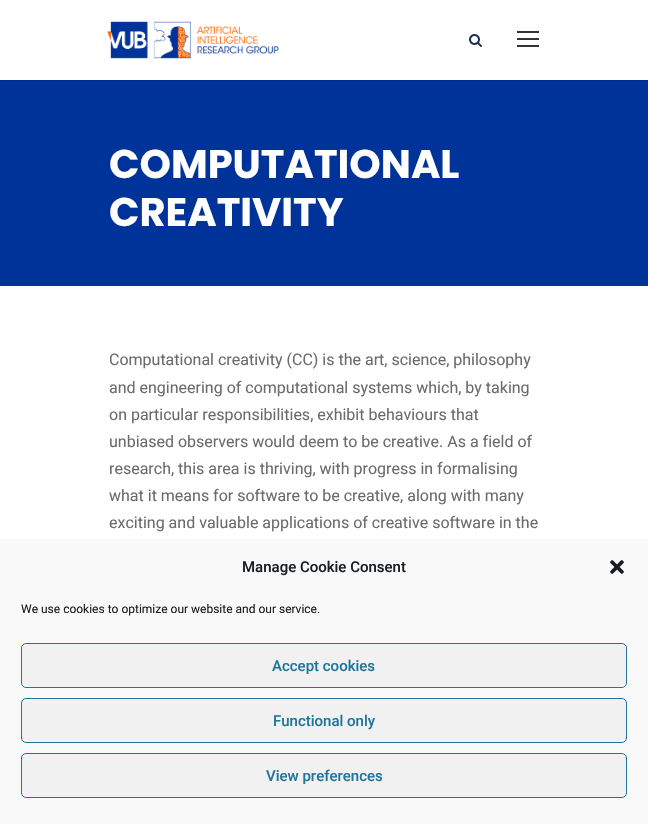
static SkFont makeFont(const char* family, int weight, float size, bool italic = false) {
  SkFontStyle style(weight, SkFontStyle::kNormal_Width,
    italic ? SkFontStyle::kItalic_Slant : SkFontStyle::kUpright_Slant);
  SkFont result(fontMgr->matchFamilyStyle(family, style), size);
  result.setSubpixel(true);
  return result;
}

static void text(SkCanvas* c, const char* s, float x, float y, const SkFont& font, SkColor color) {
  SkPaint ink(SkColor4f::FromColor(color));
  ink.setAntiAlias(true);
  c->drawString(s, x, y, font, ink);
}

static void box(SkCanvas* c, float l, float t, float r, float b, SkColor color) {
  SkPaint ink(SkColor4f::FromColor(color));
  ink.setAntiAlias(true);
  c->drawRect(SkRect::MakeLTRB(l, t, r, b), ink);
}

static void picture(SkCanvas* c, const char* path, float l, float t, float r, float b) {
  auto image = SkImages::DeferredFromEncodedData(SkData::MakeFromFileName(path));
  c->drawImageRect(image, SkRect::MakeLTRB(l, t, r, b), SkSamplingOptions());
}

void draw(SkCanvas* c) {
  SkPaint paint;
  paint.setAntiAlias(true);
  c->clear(0xffffffff);
  box(c, 0, 80, 648, 286, 0xff003399);
  paint.setColor(0x1a000000);
  paint.setMaskFilter(SkMaskFilter::MakeBlur(kNormal_SkBlurStyle, 1));
  c->drawRect(SkRect::MakeLTRB(0, 1, 648, 81), paint);
  paint.setMaskFilter(nullptr);
  box(c, 0, 0, 648, 80, 0xffffffff);
  picture(c, "img_01.png", 107, 21, 279, 59);
  picture(c, "img_02.png", 469, 34, 482, 47);
  box(c, 517, 31, 539, 33, 0xff333333);
  box(c, 517, 38, 539, 40, 0xff333333);
  box(c, 517, 45, 539, 47, 0xff333333);
  SkFont face1 = makeFont("Poppins", 700, 40);
  text(c, "COMPUTATIONAL", 109, 178, face1, 0xffffffff);
  text(c, "CREATIVITY", 109, 226, face1, 0xffffffff);
  SkFont face2 = makeFont("Roboto", 400, 16);
  text(c, "Computational creativity (CC) is the art, science, philosophy", 109, 365, face2, 0xff6b6b6b);
  text(c, "and engineering of computational systems which, by taking", 109, 393, face2, 0xff6b6b6b);
  text(c, "on particular responsibilities, exhibit behaviours that", 109, 420, face2, 0xff6b6b6b);
  text(c, "unbiased observers would deem to be creative. As a field of", 109, 447, face2, 0xff6b6b6b);
  text(c, "research, this area is thriving, with progress in formalising", 109, 474, face2, 0xff6b6b6b);
  text(c, "what it means for software to be creative, along with many", 109, 501, face2, 0xff6b6b6b);
  text(c, "exciting and valuable applications of creative software in the", 109, 528, face2, 0xff6b6b6b);
  box(c, 0, 539, 648, 824, 0xfff9f9f9);
  SkFont face3 = makeFont("Roboto", 500, 15);
  text(c, "Manage Cookie Consent", 242, 572, face3, 0xff191e23);
  picture(c, "img_03.png", 610, 560, 624, 574);
  SkFont face4 = makeFont("Roboto", 400, 12);
  text(c, "We use cookies to optimize our website and our service.", 21, 613, face4, 0xff191e23);
  paint.setColor(0xfff1f1f1);
  c->drawRoundRect(SkRect::MakeLTRB(21.5f, 643.5f, 626.5f, 687.5f), 4.5f, 4.5f, paint);
  paint.setStyle(SkPaint::kStroke_Style);
  paint.setStrokeWidth(1);
  paint.setColor(0xff21759b);
  c->drawRoundRect(SkRect::MakeLTRB(21.5f, 643.5f, 626.5f, 687.5f), 4.5f, 4.5f, paint);
  text(c, "Accept cookies", 272, 671, face3, 0xff21759b);
  paint.setStyle(SkPaint::kFill_Style);
  paint.setColor(0xfff1f1f1);
  c->drawRoundRect(SkRect::MakeLTRB(21.5f, 698.5f, 626.5f, 742.5f), 4.5f, 4.5f, paint);
  paint.setStyle(SkPaint::kStroke_Style);
  paint.setColor(0xff21759b);
  c->drawRoundRect(SkRect::MakeLTRB(21.5f, 698.5f, 626.5f, 742.5f), 4.5f, 4.5f, paint);
  text(c, "Functional only", 273, 726, face3, 0xff21759b);
  paint.setStyle(SkPaint::kFill_Style);
  paint.setColor(0xfff1f1f1);
  c->drawRoundRect(SkRect::MakeLTRB(21.5f, 753.5f, 626.5f, 797.5f), 4.5f, 4.5f, paint);
  paint.setStyle(SkPaint::kStroke_Style);
  paint.setColor(0xff21759b);
  c->drawRoundRect(SkRect::MakeLTRB(21.5f, 753.5f, 626.5f, 797.5f), 4.5f, 4.5f, paint);
  text(c, "View preferences", 266, 781, face3, 0xff21759b);
}
